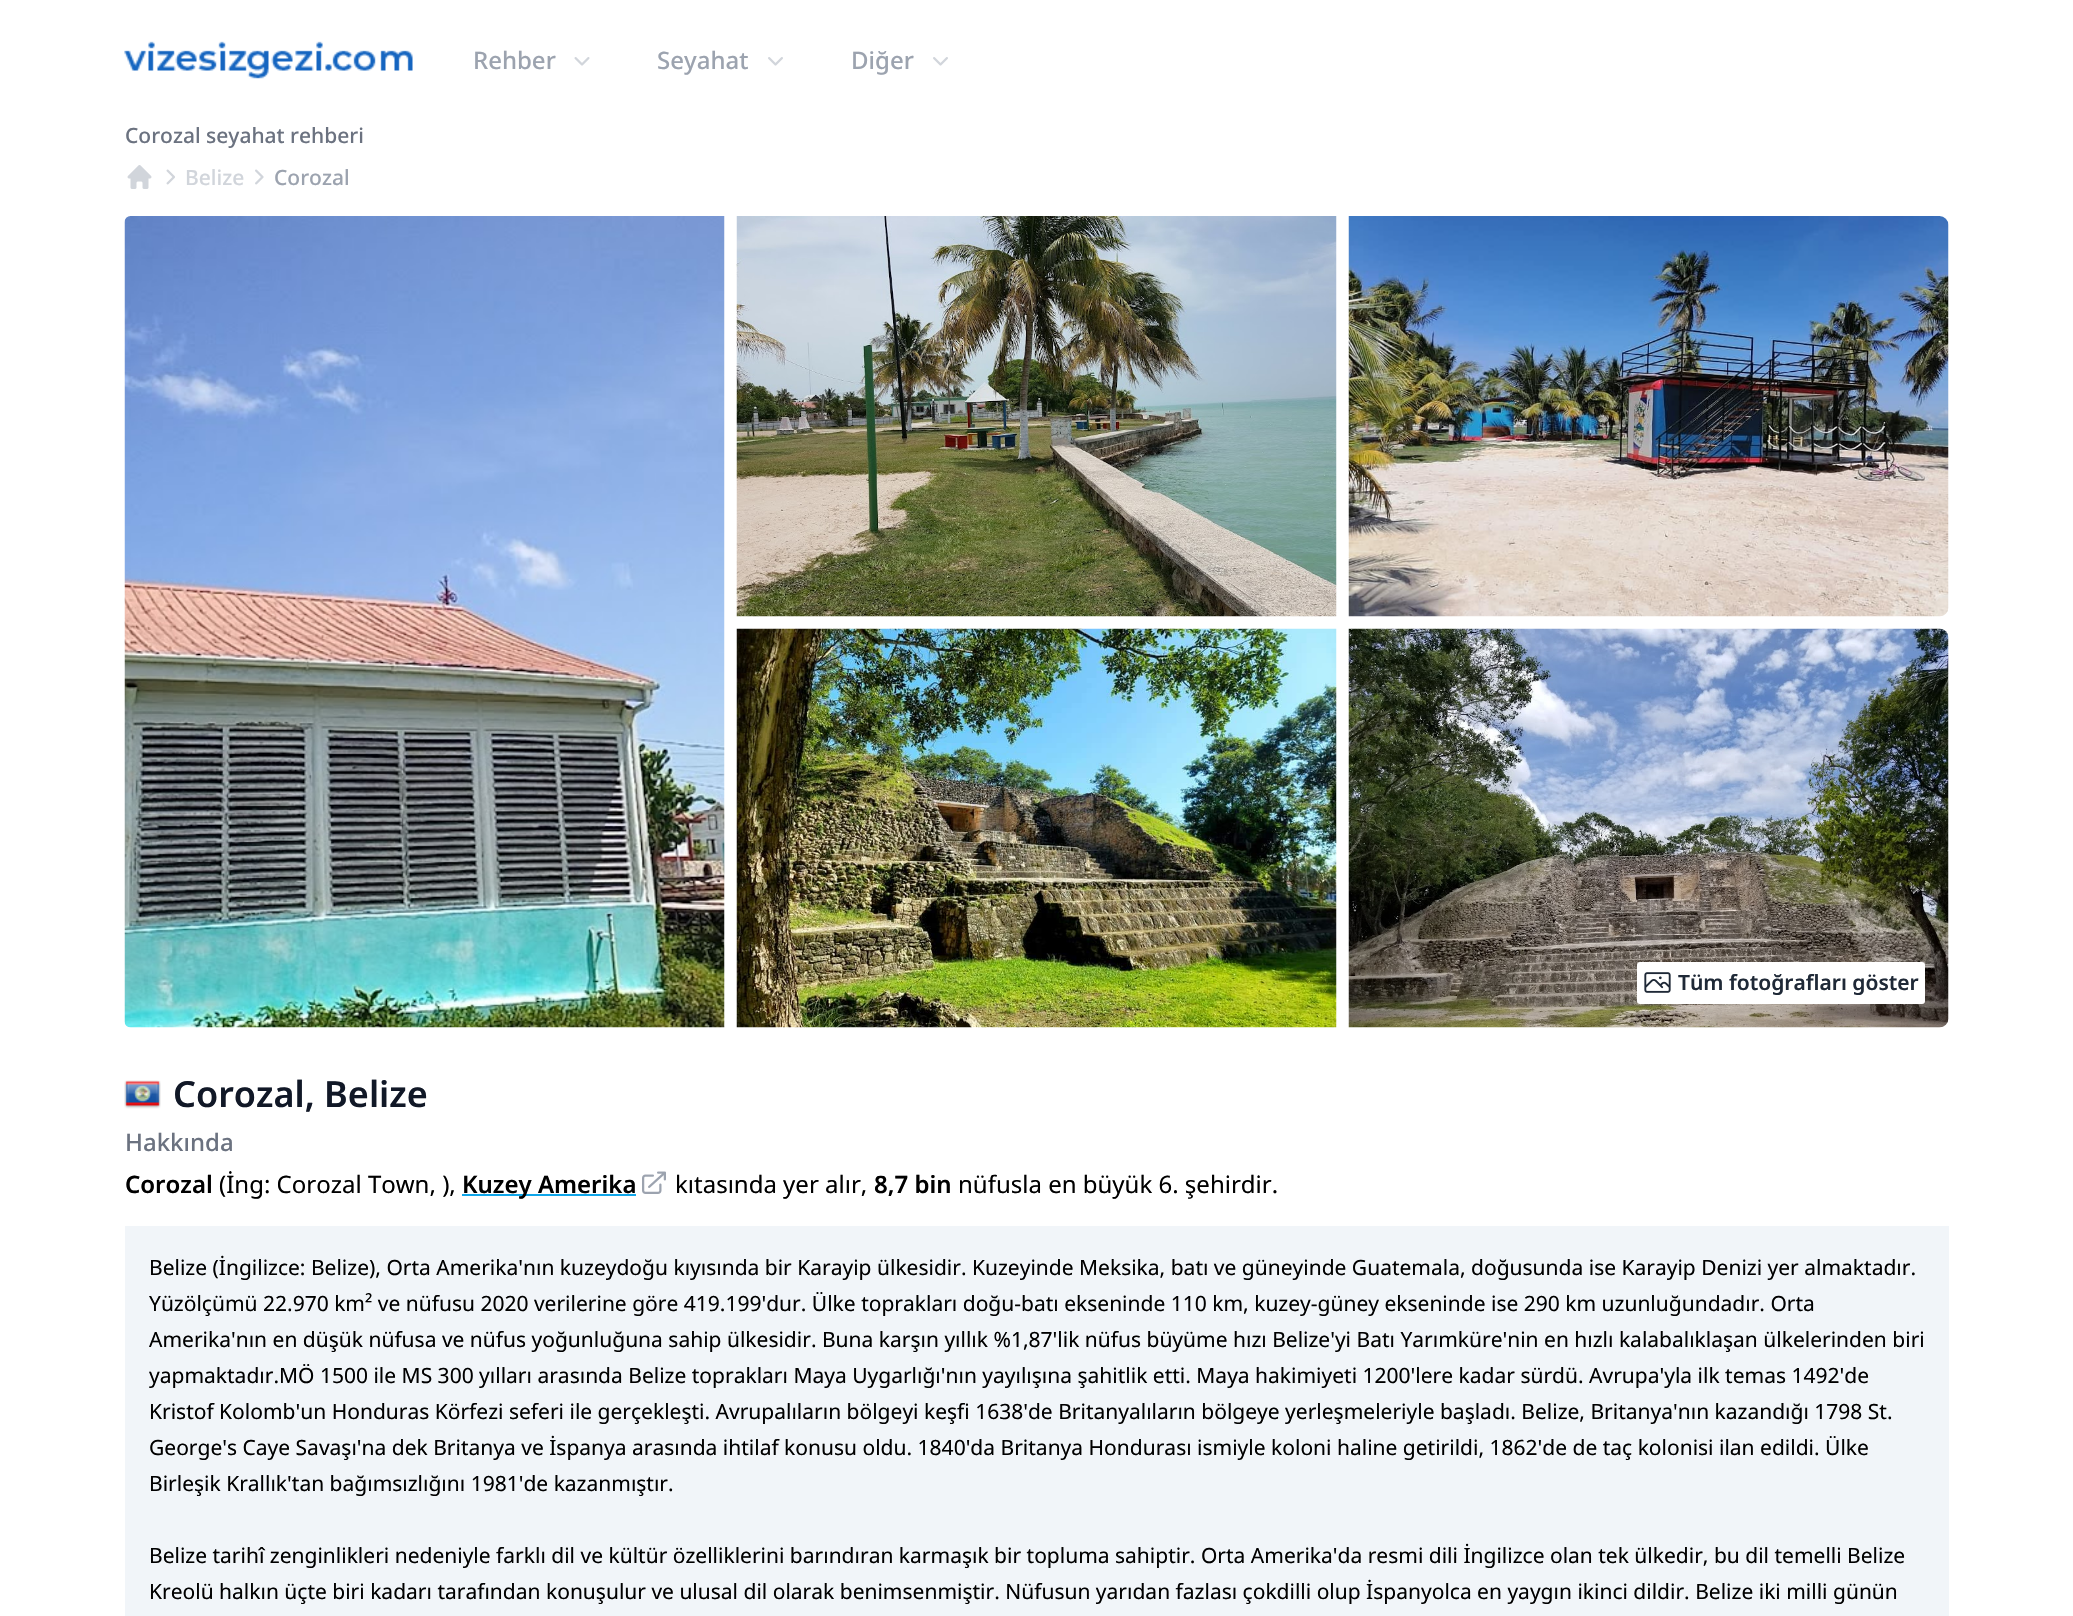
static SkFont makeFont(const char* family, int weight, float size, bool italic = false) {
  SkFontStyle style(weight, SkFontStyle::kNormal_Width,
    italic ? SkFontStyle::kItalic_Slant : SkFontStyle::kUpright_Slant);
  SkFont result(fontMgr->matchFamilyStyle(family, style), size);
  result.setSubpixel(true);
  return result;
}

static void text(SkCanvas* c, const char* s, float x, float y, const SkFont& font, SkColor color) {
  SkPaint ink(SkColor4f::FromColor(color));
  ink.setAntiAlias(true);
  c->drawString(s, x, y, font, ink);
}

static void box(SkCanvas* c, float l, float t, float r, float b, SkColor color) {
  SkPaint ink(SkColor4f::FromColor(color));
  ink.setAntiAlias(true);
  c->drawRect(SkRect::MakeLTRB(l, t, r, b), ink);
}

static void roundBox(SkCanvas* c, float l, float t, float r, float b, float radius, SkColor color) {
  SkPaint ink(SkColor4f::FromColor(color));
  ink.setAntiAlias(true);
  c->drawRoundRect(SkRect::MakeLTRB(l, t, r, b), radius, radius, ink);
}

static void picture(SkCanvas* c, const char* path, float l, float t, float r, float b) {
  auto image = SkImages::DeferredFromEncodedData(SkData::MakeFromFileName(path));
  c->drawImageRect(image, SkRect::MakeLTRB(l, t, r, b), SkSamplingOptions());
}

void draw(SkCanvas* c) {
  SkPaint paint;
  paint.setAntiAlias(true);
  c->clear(0xffffffff);
  picture(c, "img_01.png", 124, 41, 413, 79);
  SkFont face1 = makeFont("Noto Sans", 500, 24);
  text(c, "Rehber", 473, 69, face1, 0xff9ca3af);
  picture(c, "img_02.png", 574, 57, 590, 66);
  text(c, "Seyahat", 657, 69, face1, 0xff9ca3af);
  picture(c, "img_03.png", 768, 57, 783, 66);
  text(c, "Diğer", 851, 69, face1, 0xff9ca3af);
  picture(c, "img_03.png", 933, 57, 948, 66);
  SkFont face2 = makeFont("Noto Sans", 500, 21);
  text(c, "Corozal seyahat rehberi", 125, 143, face2, 0xff6b7280);
  picture(c, "img_04.png", 127, 165, 152, 189);
  picture(c, "img_05.png", 166, 169, 175, 185);
  text(c, "Belize", 185, 185, face2, 0xffd1d5db);
  picture(c, "img_06.png", 255, 169, 264, 185);
  text(c, "Corozal", 274, 185, face2, 0xff9ca3af);
  picture(c, "img_07.png", 124, 216, 725, 1028);
  picture(c, "img_08.png", 736, 216, 1337, 617);
  picture(c, "img_09.png", 736, 628, 1337, 1028);
  picture(c, "img_10.png", 1348, 216, 1949, 617);
  picture(c, "img_11.png", 1348, 628, 1949, 1028);
  roundBox(c, 1637, 962, 1925, 1004, 3, 0xffffffff);
  picture(c, "img_12.png", 1644, 972, 1671, 993);
  SkFont face3 = makeFont("Noto Sans", 600, 21);
  text(c, "Tüm fotoğrafları göster", 1678, 990, face3, 0xff1f2937);
  picture(c, "img_13.png", 124, 1080, 161, 1109);
  SkFont face4 = makeFont("Noto Sans", 600, 36);
  text(c, "Corozal, Belize", 173, 1107, face4, 0xff111827);
  text(c, "Hakkında", 125, 1151, face1, 0xff6b7280);
  SkFont face5 = makeFont("Noto Sans", 600, 24);
  text(c, "Corozal", 125, 1193, face5, 0xff000000);
  SkFont face6 = makeFont("Noto Sans", 400, 24);
  text(c, "(İng: Corozal Town, ),", 219, 1193, face6, 0xff000000);
  box(c, 462, 1194, 636, 1196, 0xff0ea5e9);
  text(c, "Kuzey Amerika", 462, 1193, face5, 0xff000000);
  picture(c, "img_14.png", 642, 1171, 666, 1194);
  text(c, "kıtasında yer alır,", 675, 1193, face6, 0xff000000);
  text(c, "8,7 bin", 874, 1193, face5, 0xff000000);
  text(c, "nüfusla en büyük 6. şehirdir.", 958, 1193, face6, 0xff000000);
  box(c, 125, 1226, 1949, 1616, 0xfff1f5f9);
  SkFont face7 = makeFont("Noto Sans", 400, 21);
  text(c, "Belize (İngilizce: Belize), Orta Amerika'nın kuzeydoğu kıyısında bir Karayip ülkesidir. Kuzeyinde Meksika, batı ve güneyinde Guatemala, doğusunda ise Karayip Denizi yer almaktadır.", 149, 1275, face7, 0xff000000);
  text(c, "Yüzölçümü 22.970 km² ve nüfusu 2020 verilerine göre 419.199'dur. Ülke toprakları doğu-batı ekseninde 110 km, kuzey-güney ekseninde ise 290 km uzunluğundadır. Orta", 149, 1311, face7, 0xff000000);
  text(c, "Amerika'nın en düşük nüfusa ve nüfus yoğunluğuna sahip ülkesidir. Buna karşın yıllık %1,87'lik nüfus büyüme hızı Belize'yi Batı Yarımküre'nin en hızlı kalabalıklaşan ülkelerinden biri", 149, 1347, face7, 0xff000000);
  text(c, "yapmaktadır.MÖ 1500 ile MS 300 yılları arasında Belize toprakları Maya Uygarlığı'nın yayılışına şahitlik etti. Maya hakimiyeti 1200'lere kadar sürdü. Avrupa'yla ilk temas 1492'de", 149, 1383, face7, 0xff000000);
  text(c, "Kristof Kolomb'un Honduras Körfezi seferi ile gerçekleşti. Avrupalıların bölgeyi keşfi 1638'de Britanyalıların bölgeye yerleşmeleriyle başladı. Belize, Britanya'nın kazandığı 1798 St.", 149, 1419, face7, 0xff000000);
  text(c, "George's Caye Savaşı'na dek Britanya ve İspanya arasında ihtilaf konusu oldu. 1840'da Britanya Hondurası ismiyle koloni haline getirildi, 1862'de de taç kolonisi ilan edildi. Ülke", 149, 1455, face7, 0xff000000);
  text(c, "Birleşik Krallık'tan bağımsızlığını 1981'de kazanmıştır.", 149, 1491, face7, 0xff000000);
  text(c, "Belize tarihî zenginlikleri nedeniyle farklı dil ve kültür özelliklerini barındıran karmaşık bir topluma sahiptir. Orta Amerika'da resmi dili İngilizce olan tek ülkedir, bu dil temelli Belize", 149, 1563, face7, 0xff000000);
  text(c, "Kreolü halkın üçte biri kadarı tarafından konuşulur ve ulusal dil olarak benimsenmiştir. Nüfusun yarıdan fazlası çokdilli olup İspanyolca en yaygın ikinci dildir. Belize iki milli günün", 149, 1599, face7, 0xff000000);
}
